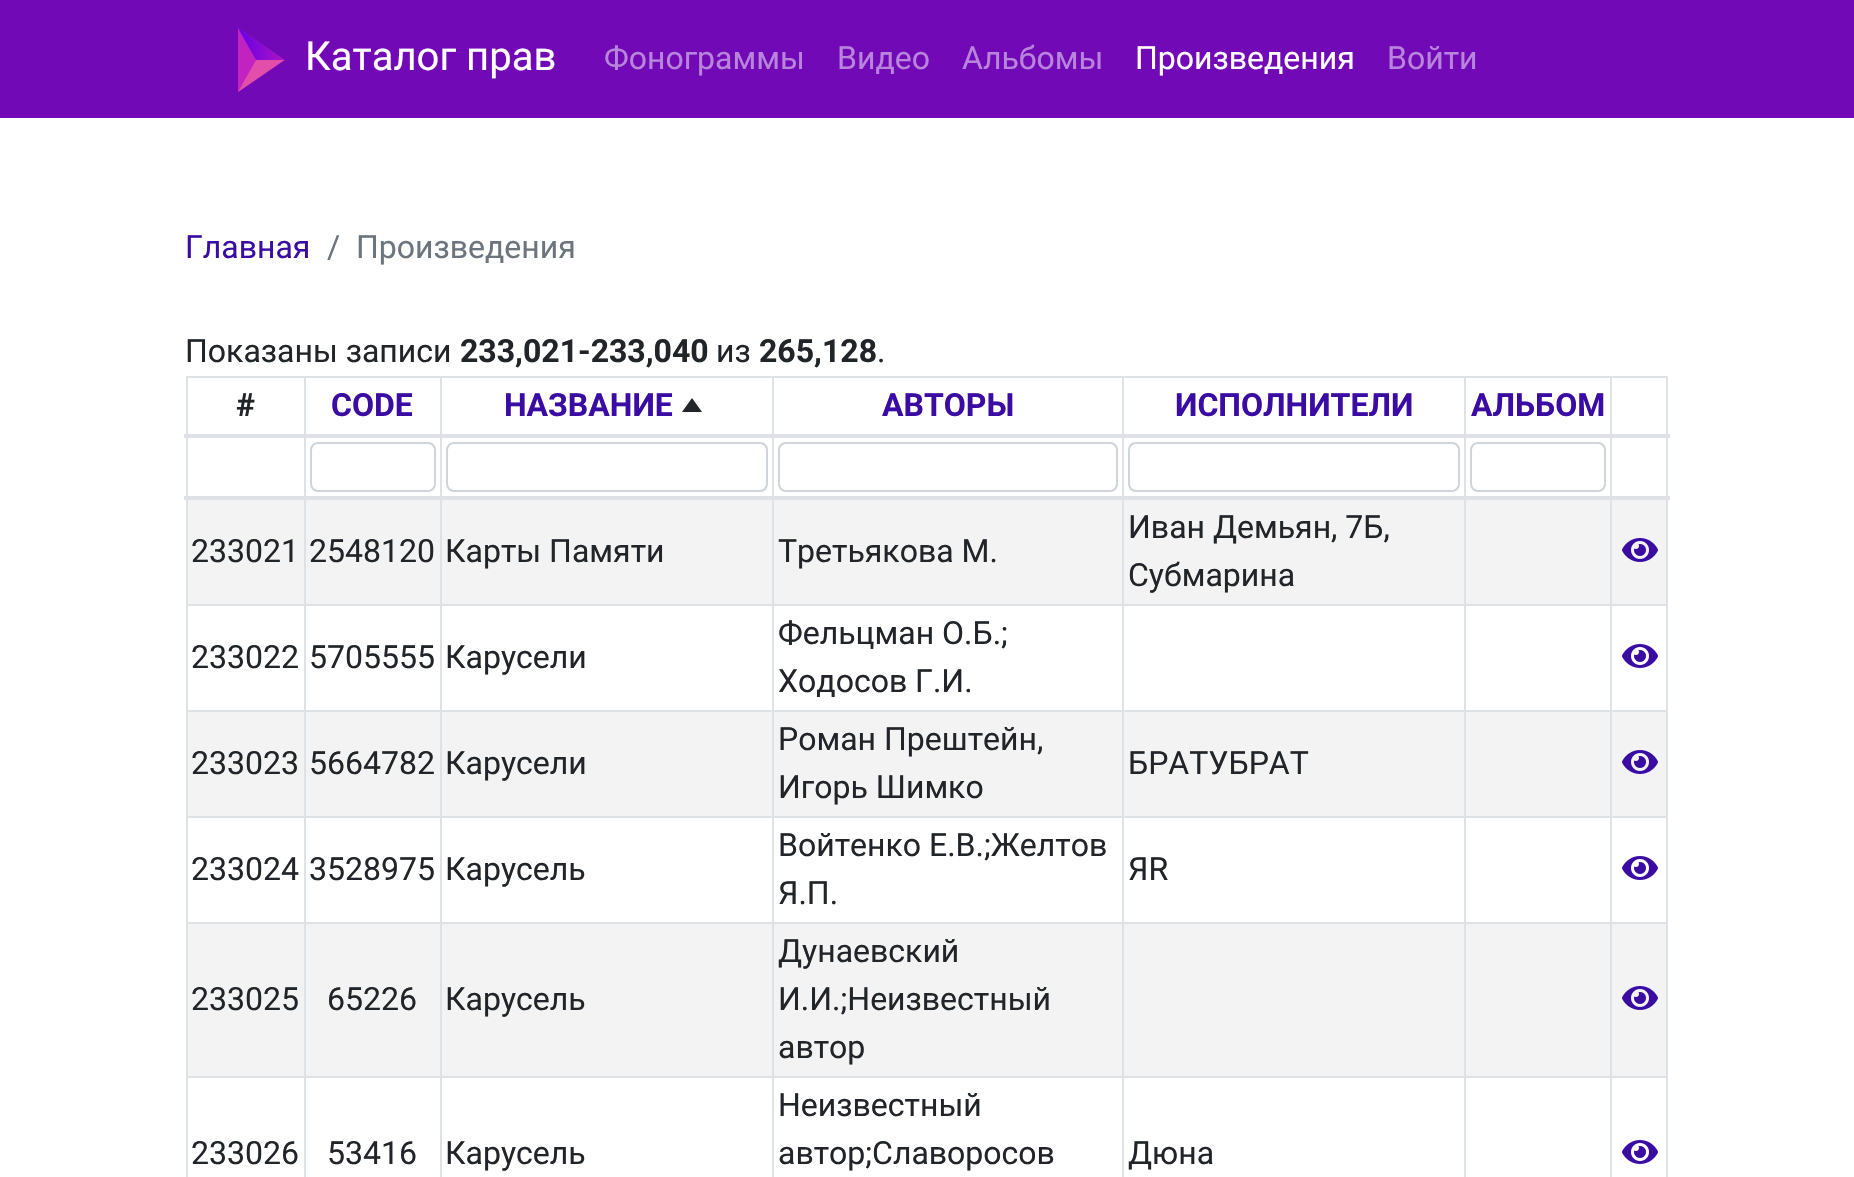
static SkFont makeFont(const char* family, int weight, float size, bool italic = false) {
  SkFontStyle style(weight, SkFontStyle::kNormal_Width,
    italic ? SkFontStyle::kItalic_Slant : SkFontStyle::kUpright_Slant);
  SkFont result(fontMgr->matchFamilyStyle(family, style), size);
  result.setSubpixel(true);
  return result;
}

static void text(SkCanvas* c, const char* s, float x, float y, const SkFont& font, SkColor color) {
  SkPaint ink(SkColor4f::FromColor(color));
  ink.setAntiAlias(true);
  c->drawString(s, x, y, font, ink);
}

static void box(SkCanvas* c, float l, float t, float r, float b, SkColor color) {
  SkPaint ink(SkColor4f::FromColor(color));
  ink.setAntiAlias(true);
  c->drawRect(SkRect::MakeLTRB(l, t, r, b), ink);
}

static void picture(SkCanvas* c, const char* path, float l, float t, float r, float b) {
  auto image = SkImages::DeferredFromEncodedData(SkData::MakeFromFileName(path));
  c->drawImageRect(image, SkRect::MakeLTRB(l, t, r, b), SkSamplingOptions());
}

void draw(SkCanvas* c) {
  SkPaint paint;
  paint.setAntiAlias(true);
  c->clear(0xffffffff);
  box(c, 0, 0, 1854, 118, 0xff7209b7);
  picture(c, "img_01.png", 238, 28, 285, 92);
  SkFont face1 = makeFont("Roboto", 400, 40);
  text(c, "Каталог прав", 305, 70, face1, 0xffffffff);
  SkFont face2 = makeFont("Roboto", 400, 32);
  text(c, "Фонограммы", 604, 69, face2, 0xffb984db);
  text(c, "Видео", 837, 69, face2, 0xffb984db);
  text(c, "Альбомы", 962, 69, face2, 0xffb984db);
  text(c, "Произведения", 1135, 69, face2, 0xffffffff);
  text(c, "Войти", 1387, 69, face2, 0xffb984db);
  text(c, "Главная", 185, 258, face2, 0xff3a0ca3);
  text(c, "/", 327, 258, face2, 0xff6c757d);
  text(c, "Произведения", 356, 258, face2, 0xff6c757d);
  text(c, "Показаны записи", 185, 362, face2, 0xff212529);
  SkFont face3 = makeFont("Roboto", 700, 32);
  text(c, "233,021-233,040", 460, 362, face3, 0xff212529);
  text(c, "из", 716, 362, face2, 0xff212529);
  text(c, "265,128", 759, 362, face3, 0xff212529);
  text(c, ".", 877, 362, face2, 0xff212529);
  box(c, 186, 376, 1668, 378, 0xffdee2e6);
  box(c, 1666, 376, 1668, 1177, 0xffdee2e6);
  box(c, 186, 376, 188, 1177, 0xffdee2e6);
  text(c, "#", 236, 416, face3, 0xff212529);
  text(c, "CODE", 331, 416, face3, 0xff3a0ca3);
  text(c, "НАЗВАНИЕ", 504, 416, face3, 0xff3a0ca3);
  paint.setColor(0xff212529);
  c->drawPath(SkPathBuilder().moveTo(702, 412).lineTo(682, 412).lineTo(692, 398).close().detach(), paint);
  text(c, "АВТОРЫ", 882, 416, face3, 0xff3a0ca3);
  text(c, "ИСПОЛНИТЕЛИ", 1175, 416, face3, 0xff3a0ca3);
  text(c, "АЛЬБОМ", 1471, 416, face3, 0xff3a0ca3);
  box(c, 188, 500, 1666, 604, 0xfff3f3f3);
  box(c, 1610, 604, 1668, 606, 0xffdee2e6);
  box(c, 1610, 710, 1668, 712, 0xffdee2e6);
  box(c, 188, 712, 1666, 816, 0xfff3f3f3);
  box(c, 1610, 816, 1668, 818, 0xffdee2e6);
  box(c, 1610, 922, 1668, 924, 0xffdee2e6);
  box(c, 188, 924, 1666, 1076, 0xfff3f3f3);
  box(c, 1610, 1076, 1668, 1078, 0xffdee2e6);
  box(c, 1610, 1076, 1612, 1177, 0xffdee2e6);
  box(c, 1464, 1076, 1612, 1078, 0xffdee2e6);
  box(c, 1610, 922, 1612, 1078, 0xffdee2e6);
  box(c, 1464, 922, 1612, 924, 0xffdee2e6);
  box(c, 1610, 816, 1612, 924, 0xffdee2e6);
  box(c, 1464, 816, 1612, 818, 0xffdee2e6);
  box(c, 1610, 710, 1612, 818, 0xffdee2e6);
  box(c, 1464, 710, 1612, 712, 0xffdee2e6);
  box(c, 1610, 604, 1612, 712, 0xffdee2e6);
  box(c, 1464, 604, 1612, 606, 0xffdee2e6);
  box(c, 1464, 1076, 1466, 1177, 0xffdee2e6);
  box(c, 1122, 1076, 1466, 1078, 0xffdee2e6);
  box(c, 1464, 922, 1466, 1078, 0xffdee2e6);
  box(c, 1122, 922, 1466, 924, 0xffdee2e6);
  box(c, 1464, 816, 1466, 924, 0xffdee2e6);
  box(c, 1122, 816, 1466, 818, 0xffdee2e6);
  box(c, 1464, 710, 1466, 818, 0xffdee2e6);
  box(c, 1122, 710, 1466, 712, 0xffdee2e6);
  box(c, 1464, 604, 1466, 712, 0xffdee2e6);
  box(c, 1122, 604, 1466, 606, 0xffdee2e6);
  box(c, 1122, 1076, 1124, 1177, 0xffdee2e6);
  box(c, 772, 1076, 1124, 1078, 0xffdee2e6);
  box(c, 1122, 922, 1124, 1078, 0xffdee2e6);
  box(c, 772, 922, 1124, 924, 0xffdee2e6);
  box(c, 1122, 816, 1124, 924, 0xffdee2e6);
  box(c, 772, 816, 1124, 818, 0xffdee2e6);
  box(c, 1122, 710, 1124, 818, 0xffdee2e6);
  box(c, 772, 710, 1124, 712, 0xffdee2e6);
  box(c, 1122, 604, 1124, 712, 0xffdee2e6);
  box(c, 772, 604, 1124, 606, 0xffdee2e6);
  box(c, 772, 1076, 774, 1177, 0xffdee2e6);
  box(c, 440, 1076, 774, 1078, 0xffdee2e6);
  box(c, 772, 922, 774, 1078, 0xffdee2e6);
  box(c, 440, 922, 774, 924, 0xffdee2e6);
  box(c, 772, 816, 774, 924, 0xffdee2e6);
  box(c, 440, 816, 774, 818, 0xffdee2e6);
  box(c, 772, 710, 774, 818, 0xffdee2e6);
  box(c, 440, 710, 774, 712, 0xffdee2e6);
  box(c, 772, 604, 774, 712, 0xffdee2e6);
  box(c, 440, 604, 774, 606, 0xffdee2e6);
  box(c, 440, 1076, 442, 1177, 0xffdee2e6);
  box(c, 304, 1076, 442, 1078, 0xffdee2e6);
  box(c, 440, 922, 442, 1078, 0xffdee2e6);
  box(c, 304, 922, 442, 924, 0xffdee2e6);
  box(c, 440, 816, 442, 924, 0xffdee2e6);
  box(c, 304, 816, 442, 818, 0xffdee2e6);
  box(c, 440, 710, 442, 818, 0xffdee2e6);
  box(c, 304, 710, 442, 712, 0xffdee2e6);
  box(c, 440, 604, 442, 712, 0xffdee2e6);
  box(c, 304, 604, 442, 606, 0xffdee2e6);
  box(c, 304, 1076, 306, 1177, 0xffdee2e6);
  box(c, 186, 1076, 306, 1078, 0xffdee2e6);
  box(c, 304, 922, 306, 1078, 0xffdee2e6);
  box(c, 186, 922, 306, 924, 0xffdee2e6);
  box(c, 304, 816, 306, 924, 0xffdee2e6);
  box(c, 186, 816, 306, 818, 0xffdee2e6);
  box(c, 304, 710, 306, 818, 0xffdee2e6);
  box(c, 186, 710, 306, 712, 0xffdee2e6);
  box(c, 304, 604, 306, 712, 0xffdee2e6);
  box(c, 186, 604, 306, 606, 0xffdee2e6);
  box(c, 304, 376, 306, 606, 0xffdee2e6);
  box(c, 440, 376, 442, 606, 0xffdee2e6);
  box(c, 772, 376, 774, 606, 0xffdee2e6);
  box(c, 1122, 376, 1124, 606, 0xffdee2e6);
  box(c, 1464, 376, 1466, 606, 0xffdee2e6);
  box(c, 1610, 376, 1612, 606, 0xffdee2e6);
  box(c, 184, 434, 1670, 438, 0xffdee2e6);
  paint.setStyle(SkPaint::kStroke_Style);
  paint.setStrokeWidth(2);
  paint.setColor(0xffced4da);
  c->drawRoundRect(SkRect::MakeLTRB(311, 443, 435, 491), 7, 7, paint);
  c->drawRoundRect(SkRect::MakeLTRB(447, 443, 767, 491), 7, 7, paint);
  c->drawRoundRect(SkRect::MakeLTRB(779, 443, 1117, 491), 7, 7, paint);
  c->drawRoundRect(SkRect::MakeLTRB(1129, 443, 1459, 491), 7, 7, paint);
  c->drawRoundRect(SkRect::MakeLTRB(1471, 443, 1605, 491), 7, 7, paint);
  box(c, 184, 496, 1670, 500, 0xffdee2e6);
  text(c, "233021", 191, 562, face2, 0xff212529);
  text(c, "2548120", 309, 562, face2, 0xff212529);
  text(c, "Карты Памяти", 445, 562, face2, 0xff212529);
  text(c, "Третьякова М.", 778, 562, face2, 0xff212529);
  text(c, "Иван Демьян, 7Б,", 1128, 538, face2, 0xff212529);
  text(c, "Субмарина", 1128, 586, face2, 0xff212529);
  picture(c, "img_02.png", 1622, 538, 1658, 562);
  text(c, "233022", 191, 668, face2, 0xff212529);
  text(c, "5705555", 309, 668, face2, 0xff212529);
  text(c, "Карусели", 445, 668, face2, 0xff212529);
  text(c, "Фельцман О.Б.;", 778, 644, face2, 0xff212529);
  text(c, "Ходосов Г.И.", 778, 692, face2, 0xff212529);
  picture(c, "img_03.png", 1622, 644, 1658, 668);
  text(c, "233023", 191, 774, face2, 0xff212529);
  text(c, "5664782", 309, 774, face2, 0xff212529);
  text(c, "Карусели", 445, 774, face2, 0xff212529);
  text(c, "Роман Прештейн,", 778, 750, face2, 0xff212529);
  text(c, "Игорь Шимко", 778, 798, face2, 0xff212529);
  text(c, "БРАТУБРАТ", 1128, 774, face2, 0xff212529);
  picture(c, "img_02.png", 1622, 750, 1658, 774);
  text(c, "233024", 191, 880, face2, 0xff212529);
  text(c, "3528975", 309, 880, face2, 0xff212529);
  text(c, "Карусель", 445, 880, face2, 0xff212529);
  text(c, "Войтенко Е.В.;Желтов", 778, 856, face2, 0xff212529);
  text(c, "Я.П.", 778, 904, face2, 0xff212529);
  text(c, "ЯR", 1128, 880, face2, 0xff212529);
  picture(c, "img_03.png", 1622, 856, 1658, 880);
  text(c, "233025", 191, 1010, face2, 0xff212529);
  text(c, "65226", 327, 1010, face2, 0xff212529);
  text(c, "Карусель", 445, 1010, face2, 0xff212529);
  text(c, "Дунаевский", 778, 962, face2, 0xff212529);
  text(c, "И.И.;Неизвестный", 778, 1010, face2, 0xff212529);
  text(c, "автор", 778, 1058, face2, 0xff212529);
  picture(c, "img_02.png", 1622, 986, 1658, 1010);
  text(c, "233026", 191, 1164, face2, 0xff212529);
  text(c, "53416", 327, 1164, face2, 0xff212529);
  text(c, "Карусель", 445, 1164, face2, 0xff212529);
  text(c, "Неизвестный", 778, 1116, face2, 0xff212529);
  text(c, "автор;Славоросов", 778, 1164, face2, 0xff212529);
  text(c, "Дюна", 1128, 1164, face2, 0xff212529);
  picture(c, "img_03.png", 1622, 1140, 1658, 1164);
}
